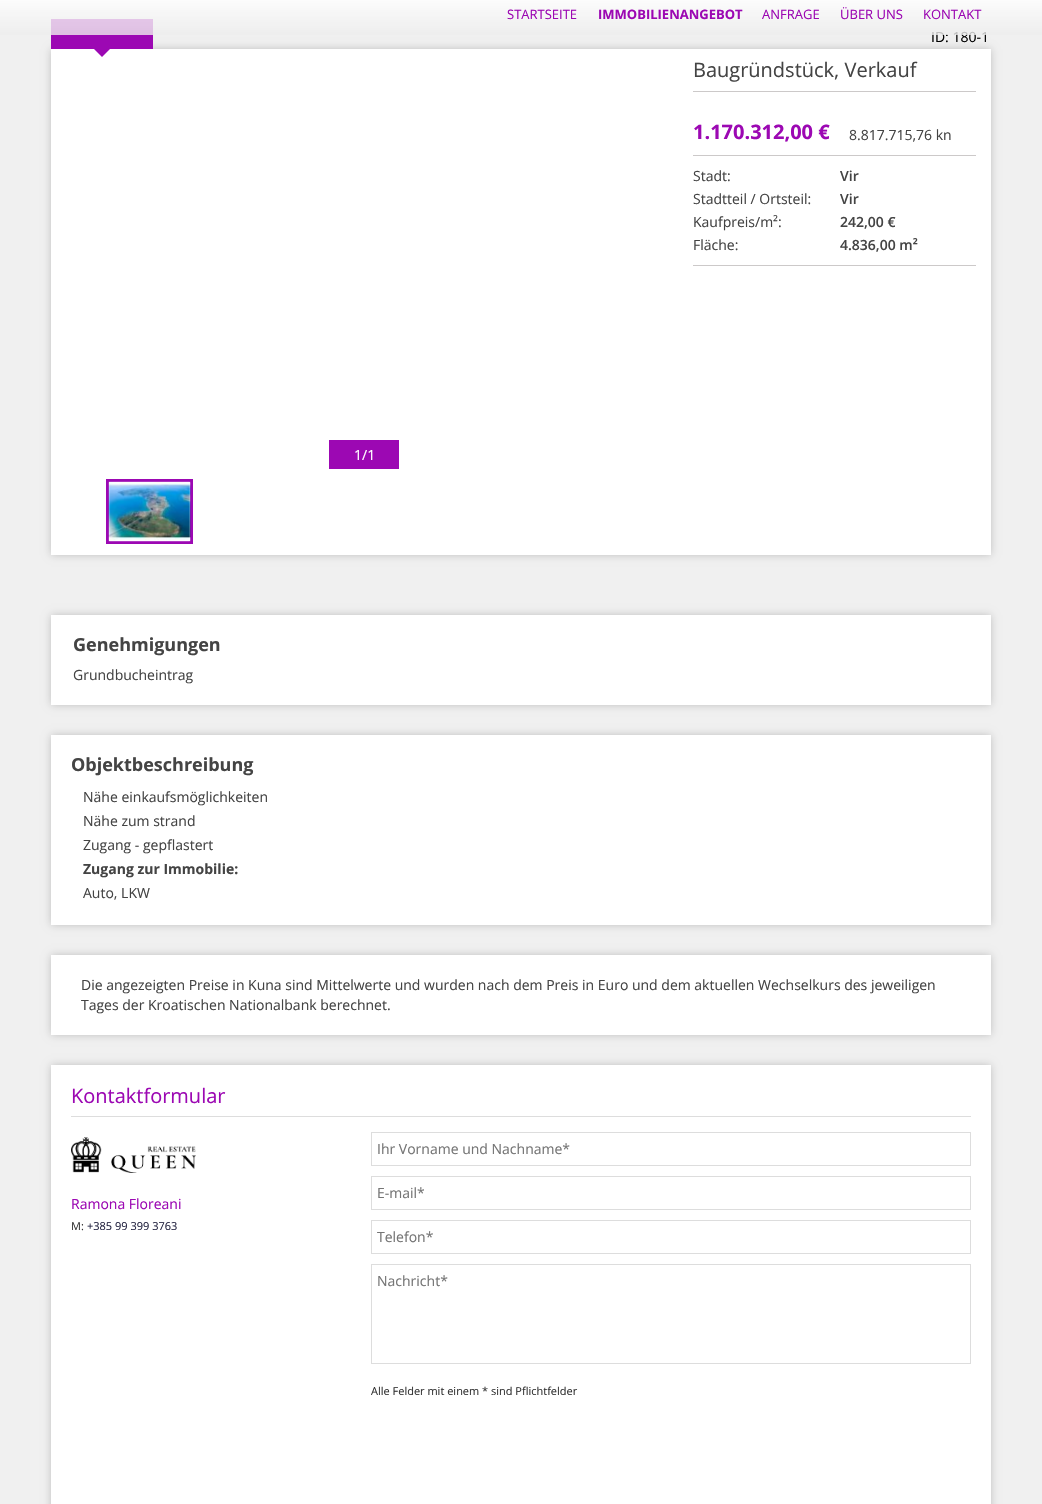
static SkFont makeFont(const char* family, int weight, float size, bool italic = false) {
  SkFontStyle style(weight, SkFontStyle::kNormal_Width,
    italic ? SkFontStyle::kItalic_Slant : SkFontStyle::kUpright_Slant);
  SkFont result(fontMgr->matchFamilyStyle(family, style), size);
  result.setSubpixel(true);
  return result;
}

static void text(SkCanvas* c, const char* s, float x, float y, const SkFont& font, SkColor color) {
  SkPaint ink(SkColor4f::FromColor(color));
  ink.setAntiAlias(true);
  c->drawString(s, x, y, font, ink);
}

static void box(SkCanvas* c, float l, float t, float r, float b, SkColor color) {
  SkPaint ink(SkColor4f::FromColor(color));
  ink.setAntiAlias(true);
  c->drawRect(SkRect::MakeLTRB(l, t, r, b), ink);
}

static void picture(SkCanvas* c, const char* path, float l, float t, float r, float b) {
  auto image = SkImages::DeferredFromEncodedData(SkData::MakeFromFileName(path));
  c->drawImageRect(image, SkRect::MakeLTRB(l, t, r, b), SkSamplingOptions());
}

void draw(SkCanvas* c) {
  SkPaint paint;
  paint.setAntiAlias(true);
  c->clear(0xfff0f0f0);
  SkFont face1 = makeFont("Open Sans", 400, 14);
  text(c, "ID: 180-1", 931, 42, face1, 0xff000000);
  paint.setColor(0x33000000);
  paint.setMaskFilter(SkMaskFilter::MakeBlur(kNormal_SkBlurStyle, 4));
  c->drawRect(SkRect::MakeLTRB(51, 49, 991, 555), paint);
  paint.setMaskFilter(nullptr);
  box(c, 51, 19, 153, 49, 0xff9c08b3);
  {
    const SkColor colors[] = {0xccffffff, 0xccf6f6f6, 0xccededed};
    const float stops[] = {0, 0.47f, 1};
    const SkPoint ends[] = {{521, 0}, {521, 35}};
    paint.setShader(SkGradientShader::MakeLinear(ends, colors, stops, 3, SkTileMode::kClamp));
    paint.setAlpha(255);
  }
  c->drawRect(SkRect::MakeLTRB(0, 0, 1042, 35), paint);
  SkFont face2 = makeFont("Open Sans", 400, 13);
  text(c, "STARTSEITE", 507, 19, face2, 0xff9c08b3);
  SkFont face3 = makeFont("Open Sans", 700, 13);
  text(c, "IMMOBILIENANGEBOT", 598, 19, face3, 0xff9c08b3);
  text(c, "ANFRAGE", 762, 19, face2, 0xff9c08b3);
  text(c, "ÜBER UNS", 840, 19, face2, 0xff9c08b3);
  text(c, "KONTAKT", 923, 19, face2, 0xff9c08b3);
  box(c, 51, 49, 991, 555, 0xffffffff);
  paint.setShader(nullptr);
  paint.setColor(0xff9c08b3);
  c->drawPath(SkPathBuilder().moveTo(94, 49).lineTo(110, 49).lineTo(102, 57).close().detach(), paint);
  SkFont face4 = makeFont("Open Sans", 400, 20);
  text(c, "Baugründstück, Verkauf", 693, 77, face4, 0xff444444);
  box(c, 693, 91, 976, 92, 0xffccc9c9);
  SkFont face5 = makeFont("Open Sans", 700, 20);
  text(c, "1.170.312,00 €", 693, 139, face5, 0xff9c08b3);
  text(c, "8.817.715,76 kn", 849, 140, face1, 0xff444444);
  box(c, 693, 155, 976, 156, 0xffccc9c9);
  text(c, "Stadt:", 693, 181, face1, 0xff444444);
  SkFont face6 = makeFont("Open Sans", 600, 14);
  text(c, "Vir", 840, 181, face6, 0xff444444);
  text(c, "Stadtteil / Ortsteil:", 693, 204, face1, 0xff444444);
  text(c, "Vir", 840, 204, face6, 0xff444444);
  text(c, "Kaufpreis/m²:", 693, 227, face1, 0xff444444);
  text(c, "242,00 €", 840, 227, face6, 0xff444444);
  text(c, "Fläche:", 693, 250, face1, 0xff444444);
  text(c, "4.836,00 m²", 840, 250, face6, 0xff444444);
  box(c, 693, 265, 976, 266, 0xffccc9c9);
  box(c, 329, 440, 399, 469, 0xff9c08b3);
  text(c, "1/1", 354, 460, face1, 0xffffffff);
  paint.setStyle(SkPaint::kStroke_Style);
  paint.setStrokeWidth(3);
  c->drawRect(SkRect::MakeLTRB(107.5f, 480.5f, 191.5f, 542.5f), paint);
  picture(c, "img_01.png", 108, 481, 191, 542);
  paint.setStyle(SkPaint::kFill_Style);
  paint.setColor(0x33000000);
  paint.setMaskFilter(SkMaskFilter::MakeBlur(kNormal_SkBlurStyle, 4));
  c->drawRect(SkRect::MakeLTRB(51, 615, 991, 705), paint);
  paint.setMaskFilter(nullptr);
  box(c, 51, 615, 991, 705, 0xffffffff);
  SkFont face7 = makeFont("Open Sans", 700, 18);
  text(c, "Genehmigungen", 73, 651, face7, 0xff444444);
  text(c, "Grundbucheintrag", 73, 680, face1, 0xff444444);
  paint.setMaskFilter(SkMaskFilter::MakeBlur(kNormal_SkBlurStyle, 4));
  c->drawRect(SkRect::MakeLTRB(51, 735, 991, 925), paint);
  paint.setMaskFilter(nullptr);
  box(c, 51, 735, 991, 925, 0xffffffff);
  text(c, "Objektbeschreibung", 71, 771, face7, 0xff444444);
  text(c, "Nähe einkaufsmöglichkeiten", 83, 802, face1, 0xff444444);
  text(c, "Nähe zum strand", 83, 826, face1, 0xff444444);
  text(c, "Zugang - gepflastert", 83, 850, face1, 0xff444444);
  SkFont face8 = makeFont("Open Sans", 700, 14);
  text(c, "Zugang zur Immobilie:", 83, 874, face8, 0xff444444);
  text(c, "Auto, LKW", 83, 898, face1, 0xff444444);
  paint.setMaskFilter(SkMaskFilter::MakeBlur(kNormal_SkBlurStyle, 4));
  c->drawRect(SkRect::MakeLTRB(51, 955, 991, 1035), paint);
  paint.setMaskFilter(nullptr);
  box(c, 51, 955, 991, 1035, 0xffffffff);
  text(c, "Die angezeigten Preise in Kuna sind Mittelwerte und wurden nach dem Preis in Euro und dem aktuellen Wechselkurs des jeweiligen", 81, 990, face1, 0xff444444);
  text(c, "Tages der Kroatischen Nationalbank berechnet.", 81, 1010, face1, 0xff444444);
  paint.setMaskFilter(SkMaskFilter::MakeBlur(kNormal_SkBlurStyle, 4));
  c->drawRect(SkRect::MakeLTRB(51, 1065, 991, 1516), paint);
  paint.setMaskFilter(nullptr);
  box(c, 51, 1065, 991, 1504, 0xffffffff);
  text(c, "Kontaktformular", 71, 1103, face4, 0xff9c08b3);
  box(c, 71, 1116, 971, 1117, 0xffdddddd);
  picture(c, "img_02.png", 71, 1137, 196, 1173);
  text(c, "Ramona Floreani", 71, 1209, face1, 0xff9c08b3);
  SkFont face9 = makeFont("Open Sans", 400, 11);
  text(c, "M:", 71, 1230, face9, 0xff333333);
  text(c, "+385 99 399 3763", 87, 1230, face9, 0xff252542);
  paint.setStyle(SkPaint::kStroke_Style);
  paint.setStrokeWidth(1);
  paint.setColor(0xffdddddd);
  c->drawRect(SkRect::MakeLTRB(371.5f, 1132.5f, 970.5f, 1165.5f), paint);
  text(c, "Ihr Vorname und Nachname*", 377, 1154, face1, 0xff757575);
  c->drawRect(SkRect::MakeLTRB(371.5f, 1176.5f, 970.5f, 1209.5f), paint);
  text(c, "E-mail*", 377, 1198, face1, 0xff757575);
  c->drawRect(SkRect::MakeLTRB(371.5f, 1220.5f, 970.5f, 1253.5f), paint);
  text(c, "Telefon*", 377, 1242, face1, 0xff757575);
  c->drawRect(SkRect::MakeLTRB(371.5f, 1264.5f, 970.5f, 1363.5f), paint);
  text(c, "Nachricht*", 377, 1286, face1, 0xff757575);
  text(c, "Alle Felder mit einem * sind Pflichtfelder", 371, 1395, face9, 0xff333333);
}
